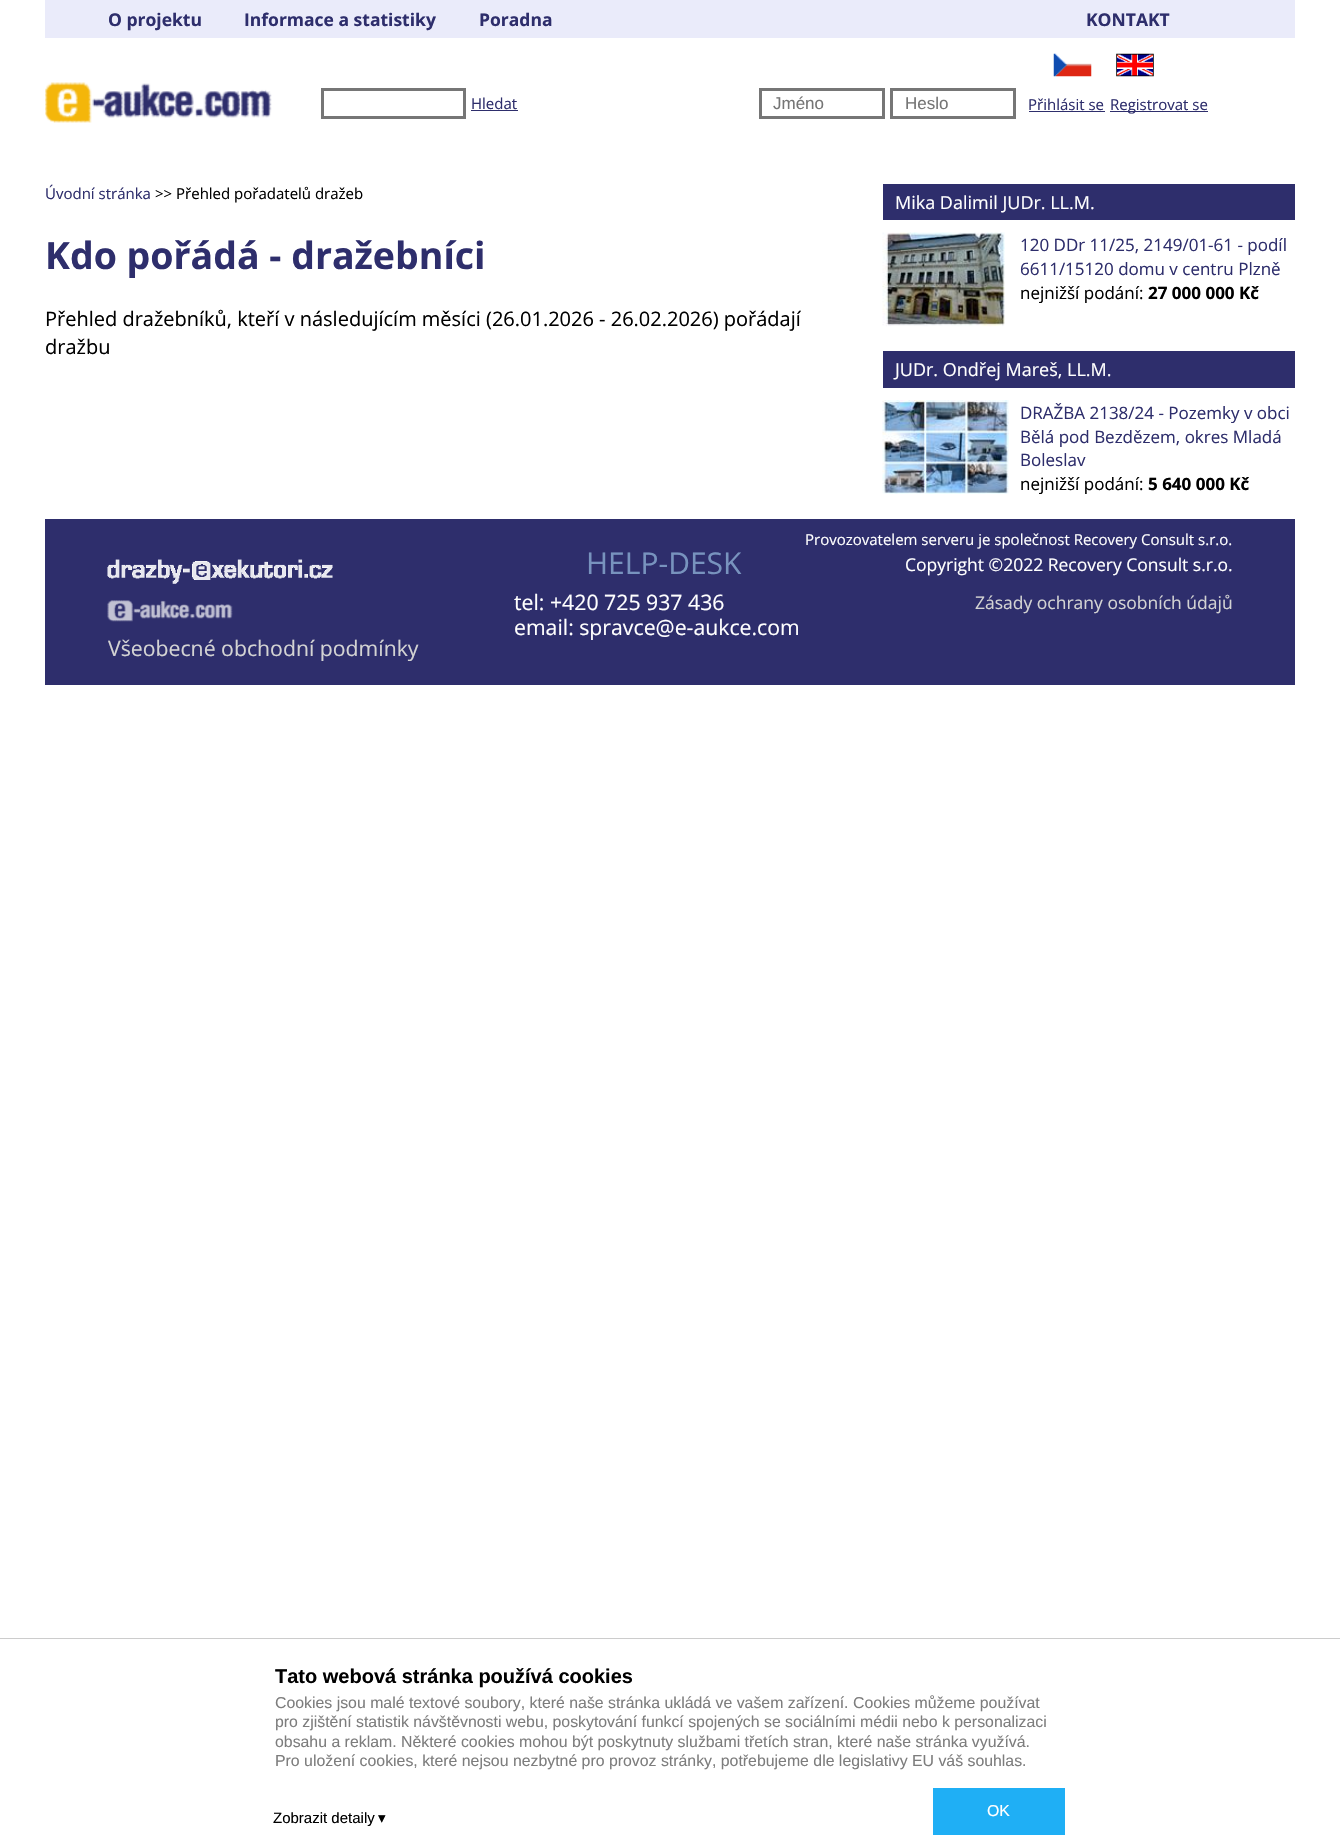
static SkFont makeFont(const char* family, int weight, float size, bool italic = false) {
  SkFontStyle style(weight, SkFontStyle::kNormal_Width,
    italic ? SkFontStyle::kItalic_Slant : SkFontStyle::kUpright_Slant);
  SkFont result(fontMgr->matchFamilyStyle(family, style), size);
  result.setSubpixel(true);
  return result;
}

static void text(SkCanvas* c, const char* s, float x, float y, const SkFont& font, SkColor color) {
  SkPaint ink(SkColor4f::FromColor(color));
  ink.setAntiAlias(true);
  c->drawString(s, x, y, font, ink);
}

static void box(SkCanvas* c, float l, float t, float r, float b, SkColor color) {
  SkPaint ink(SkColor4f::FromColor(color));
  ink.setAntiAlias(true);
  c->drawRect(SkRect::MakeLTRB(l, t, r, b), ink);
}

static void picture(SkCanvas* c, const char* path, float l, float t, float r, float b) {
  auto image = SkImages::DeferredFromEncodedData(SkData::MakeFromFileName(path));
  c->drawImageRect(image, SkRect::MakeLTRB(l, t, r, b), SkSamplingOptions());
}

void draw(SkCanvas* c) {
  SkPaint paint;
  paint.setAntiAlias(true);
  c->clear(0xffffffff);
  box(c, 45, 0, 1295, 38, 0xffeaebfa);
  SkFont face1 = makeFont("Open Sans", 700, 17.5f);
  text(c, "O projektu", 108, 26, face1, 0xff2e2e6c);
  text(c, "Informace a statistiky", 244, 26, face1, 0xff2e2e6c);
  text(c, "Poradna", 479, 26, face1, 0xff2e2e6c);
  text(c, "KONTAKT", 1086, 26, face1, 0xff2e2e6c);
  picture(c, "img_01.png", 45, 82, 272, 123);
  paint.setStyle(SkPaint::kStroke_Style);
  paint.setStrokeWidth(3);
  paint.setColor(0xff767676);
  c->drawRect(SkRect::MakeLTRB(322.5f, 89.5f, 464.5f, 117.5f), paint);
  SkFont face2 = makeFont("Open Sans", 400, 15);
  text(c, "Hledat", 471, 109, face2, 0xff2e2e6c);
  box(c, 471, 110, 518, 111, 0xff2e2e6c);
  c->drawRect(SkRect::MakeLTRB(760.5f, 89.5f, 883.5f, 117.5f), paint);
  SkFont face3 = makeFont("Liberation Sans", 400, 17);
  text(c, "Jméno", 773, 109, face3, 0xff757575);
  c->drawRect(SkRect::MakeLTRB(891.5f, 89.5f, 1014.5f, 117.5f), paint);
  text(c, "Heslo", 905, 109, face3, 0xff757575);
  picture(c, "img_02.png", 1053, 53, 1092, 77);
  picture(c, "img_03.png", 1116, 53, 1154, 77);
  text(c, "Přihlásit se", 1028, 110, face2, 0xff2e2e6c);
  box(c, 1029, 111, 1105, 112, 0xff2e2e6c);
  box(c, 1110, 111, 1208, 112, 0xff2e2e6c);
  text(c, "Registrovat se", 1110, 110, face2, 0xff2e2e6c);
  text(c, "Úvodní stránka", 45, 199, face2, 0xff2e2e6c);
  text(c, ">> Přehled pořadatelů dražeb", 155, 199, face2, 0xff000000);
  SkFont face4 = makeFont("Open Sans", 700, 37.5f);
  text(c, "Kdo pořádá - dražebníci", 45, 269, face4, 0xff2e2e6c);
  SkFont face5 = makeFont("Open Sans", 400, 20);
  text(c, "Přehled dražebníků, kteří v následujícím měsíci (26.01.2026 - 26.02.2026) pořádají", 45, 326, face5, 0xff000000);
  text(c, "dražbu", 45, 354, face5, 0xff000000);
  box(c, 883, 184, 1295, 220, 0xff2e2e6c);
  SkFont face6 = makeFont("Open Sans", 400, 18);
  text(c, "Mika Dalimil JUDr. LL.M.", 895, 209, face6, 0xffffffff);
  picture(c, "img_04.png", 882, 232, 1005, 327);
  SkFont face7 = makeFont("Open Sans", 400, 17);
  text(c, "120 DDr 11/25, 2149/01-61 - podíl", 1020, 251, face7, 0xff2e2e6c);
  text(c, "6611/15120 domu v centru Plzně", 1020, 275, face7, 0xff2e2e6c);
  text(c, "nejnižší podání:", 1020, 299, face7, 0xff000000);
  SkFont face8 = makeFont("Open Sans", 700, 17);
  text(c, "27 000 000 Kč", 1148, 299, face8, 0xff000000);
  box(c, 883, 351, 1295, 388, 0xff2e2e6c);
  text(c, "JUDr. Ondřej Mareš, LL.M.", 895, 376, face6, 0xffffffff);
  picture(c, "img_05.png", 882, 400, 1009, 494);
  text(c, "DRAŽBA 2138/24 - Pozemky v obci", 1020, 419, face7, 0xff2e2e6c);
  text(c, "Bělá pod Bezdězem, okres Mladá", 1020, 443, face7, 0xff2e2e6c);
  text(c, "Boleslav", 1020, 466, face7, 0xff2e2e6c);
  text(c, "nejnižší podání:", 1020, 490, face7, 0xff000000);
  text(c, "5 640 000 Kč", 1148, 490, face8, 0xff000000);
  box(c, 45, 519, 1295, 685, 0xff2e2e6c);
  text(c, "Provozovatelem serveru je společnost Recovery Consult s.r.o.", 805, 545, face2, 0xffffffff);
  SkFont face9 = makeFont("Open Sans", 400, 30);
  text(c, "HELP-DESK", 586, 574, face9, 0xff7893be);
  SkFont face10 = makeFont("Open Sans", 400, 21.25f);
  text(c, "tel: +420 725 937 436", 514, 610, face10, 0xffffffff);
  text(c, "email: spravce@e-aukce.com", 514, 635, face10, 0xffffffff);
  SkFont face11 = makeFont("Open Sans", 400, 17.5f);
  text(c, "Copyright ©2022 Recovery Consult s.r.o.", 905, 571, face11, 0xffffffff);
  text(c, "Zásady ochrany osobních údajů", 975, 609, face11, 0xffd3d3d3);
  picture(c, "img_06.png", 107, 559, 333, 584);
  picture(c, "img_07.png", 107, 600, 233, 622);
  text(c, "Všeobecné obchodní podmínky", 108, 656, face10, 0xffd3d3d3);
  box(c, 0, 1638, 1340, 1639, 0xffcccccc);
  SkFont face12 = makeFont("Liberation Sans", 700, 20);
  text(c, "Tato webová stránka používá cookies", 275, 1683, face12, 0xff000000);
  SkFont face13 = makeFont("Liberation Sans", 400, 15.85f);
  text(c, "Cookies jsou malé textové soubory, které naše stránka ukládá ve vašem zařízení. Cookies můžeme používat", 275, 1708, face13, 0xff7d7d7d);
  text(c, "pro zjištění statistik návštěvnosti webu, poskytování funkcí spojených se sociálními médii nebo k personalizaci", 275, 1727, face13, 0xff7d7d7d);
  text(c, "obsahu a reklam. Některé cookies mohou být poskytnuty službami třetích stran, které naše stránka využívá.", 275, 1747, face13, 0xff7d7d7d);
  text(c, "Pro uložení cookies, které nejsou nezbytné pro provoz stránky, potřebujeme dle legislativy EU váš souhlas.", 275, 1766, face13, 0xff7d7d7d);
  box(c, 933, 1788, 1065, 1835, 0xff1faff5);
  text(c, "OK", 987, 1816, face13, 0xffffffff);
  SkFont face14 = makeFont("Liberation Sans", 400, 15);
  text(c, "Zobrazit detaily", 273, 1823, face14, 0xff000000);
  SkFont face15 = makeFont("DejaVu Sans", 400, 15);
  text(c, "▾", 378, 1823, face15, 0xff000000);
}
